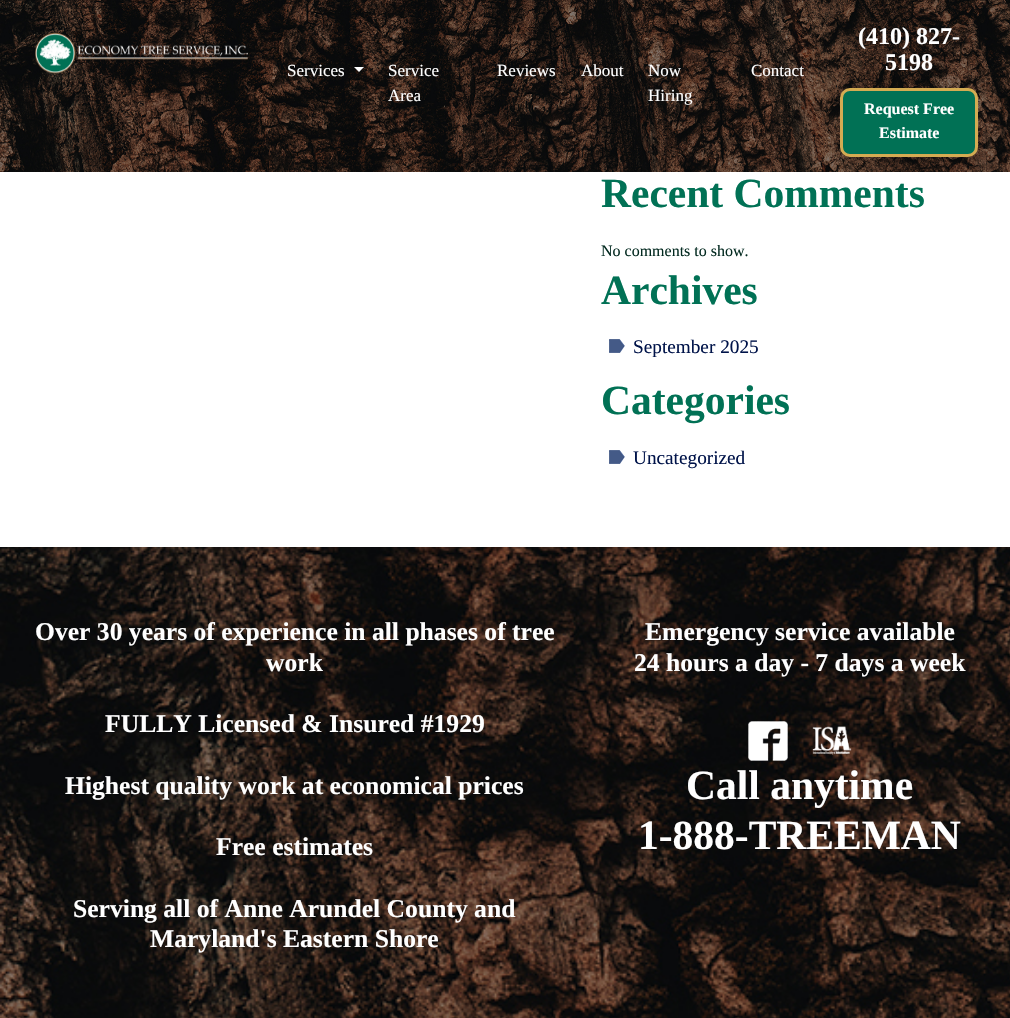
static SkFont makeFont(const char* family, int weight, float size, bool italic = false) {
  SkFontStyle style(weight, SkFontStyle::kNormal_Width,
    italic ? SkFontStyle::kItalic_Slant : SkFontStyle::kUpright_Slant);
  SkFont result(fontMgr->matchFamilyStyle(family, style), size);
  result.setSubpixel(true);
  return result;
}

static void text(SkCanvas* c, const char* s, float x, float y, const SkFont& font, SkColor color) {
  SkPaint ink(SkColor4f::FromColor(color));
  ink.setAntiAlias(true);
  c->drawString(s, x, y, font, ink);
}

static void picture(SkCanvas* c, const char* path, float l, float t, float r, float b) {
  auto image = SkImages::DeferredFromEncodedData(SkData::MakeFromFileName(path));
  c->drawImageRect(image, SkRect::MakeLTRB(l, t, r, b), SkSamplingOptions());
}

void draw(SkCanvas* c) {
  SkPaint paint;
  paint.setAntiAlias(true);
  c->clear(0xffffffff);
  picture(c, "img_01.png", 0, 0, 1010, 172);
  picture(c, "img_02.png", 35, 32, 248, 74);
  SkFont face1 = makeFont("Liberation Serif", 700, 24);
  text(c, "(410) 827-", 858, 44, face1, 0xffffffff);
  text(c, "5198", 885, 70, face1, 0xffffffff);
  paint.setColor(0xff017155);
  c->drawRoundRect(SkRect::MakeLTRB(841.5f, 89.5f, 976.5f, 155.5f), 8.5f, 8.5f, paint);
  paint.setStyle(SkPaint::kStroke_Style);
  paint.setStrokeWidth(3);
  paint.setColor(0xffd4ab52);
  c->drawRoundRect(SkRect::MakeLTRB(841.5f, 89.5f, 976.5f, 155.5f), 8.5f, 8.5f, paint);
  SkFont face2 = makeFont("Liberation Serif", 700, 16);
  text(c, "Request Free", 864, 114, face2, 0xffffffff);
  text(c, "Estimate", 879, 138, face2, 0xffffffff);
  SkFont face3 = makeFont("Liberation Serif", 400, 17);
  text(c, "Services", 287, 76, face3, 0xffffffff);
  paint.setStyle(SkPaint::kFill_Style);
  paint.setColor(0xffffffff);
  c->drawPath(SkPathBuilder().moveTo(354, 67).lineTo(364, 67).lineTo(359, 72).close().detach(), paint);
  text(c, "Service", 388, 76, face3, 0xffffffff);
  text(c, "Area", 388, 101, face3, 0xffffffff);
  text(c, "Reviews", 497, 76, face3, 0xffffffff);
  text(c, "About", 581, 76, face3, 0xffffffff);
  text(c, "Now", 648, 76, face3, 0xffffffff);
  text(c, "Hiring", 648, 101, face3, 0xffffffff);
  text(c, "Contact", 751, 76, face3, 0xffffffff);
  SkFont face4 = makeFont("Liberation Serif", 700, 41.5f);
  text(c, "Recent Comments", 601, 207, face4, 0xff017155);
  SkFont face5 = makeFont("Liberation Serif", 400, 16);
  text(c, "No comments to show.", 601, 256, face5, 0xff032a20);
  text(c, "Archives", 601, 304, face4, 0xff017155);
  picture(c, "img_03.png", 609, 339, 625, 353);
  SkFont face6 = makeFont("Liberation Serif", 400, 19.25f);
  text(c, "September 2025", 633, 353, face6, 0xff001349);
  text(c, "Categories", 601, 414, face4, 0xff017155);
  picture(c, "img_03.png", 609, 450, 625, 464);
  text(c, "Uncategorized", 633, 464, face6, 0xff001349);
  picture(c, "img_04.png", 0, 547, 1010, 1018);
  SkFont face7 = makeFont("Liberation Serif", 700, 25.6f);
  text(c, "Over 30 years of experience in all phases of tree", 35, 640, face7, 0xffffffff);
  text(c, "work", 266, 671, face7, 0xffffffff);
  text(c, "FULLY Licensed & Insured #1929", 105, 732, face7, 0xffffffff);
  text(c, "Highest quality work at economical prices", 65, 794, face7, 0xffffffff);
  text(c, "Free estimates", 216, 855, face7, 0xffffffff);
  text(c, "Serving all of Anne Arundel County and", 73, 917, face7, 0xffffffff);
  text(c, "Maryland's Eastern Shore", 150, 947, face7, 0xffffffff);
  text(c, "Emergency service available", 645, 640, face7, 0xffffffff);
  text(c, "24 hours a day - 7 days a week", 634, 671, face7, 0xffffffff);
  picture(c, "img_05.png", 748, 721, 788, 761);
  picture(c, "img_06.png", 812, 726, 852, 755);
  text(c, "Call anytime", 686, 799, face4, 0xffffffff);
  text(c, "1-888-TREEMAN", 638, 849, face4, 0xffffffff);
}
